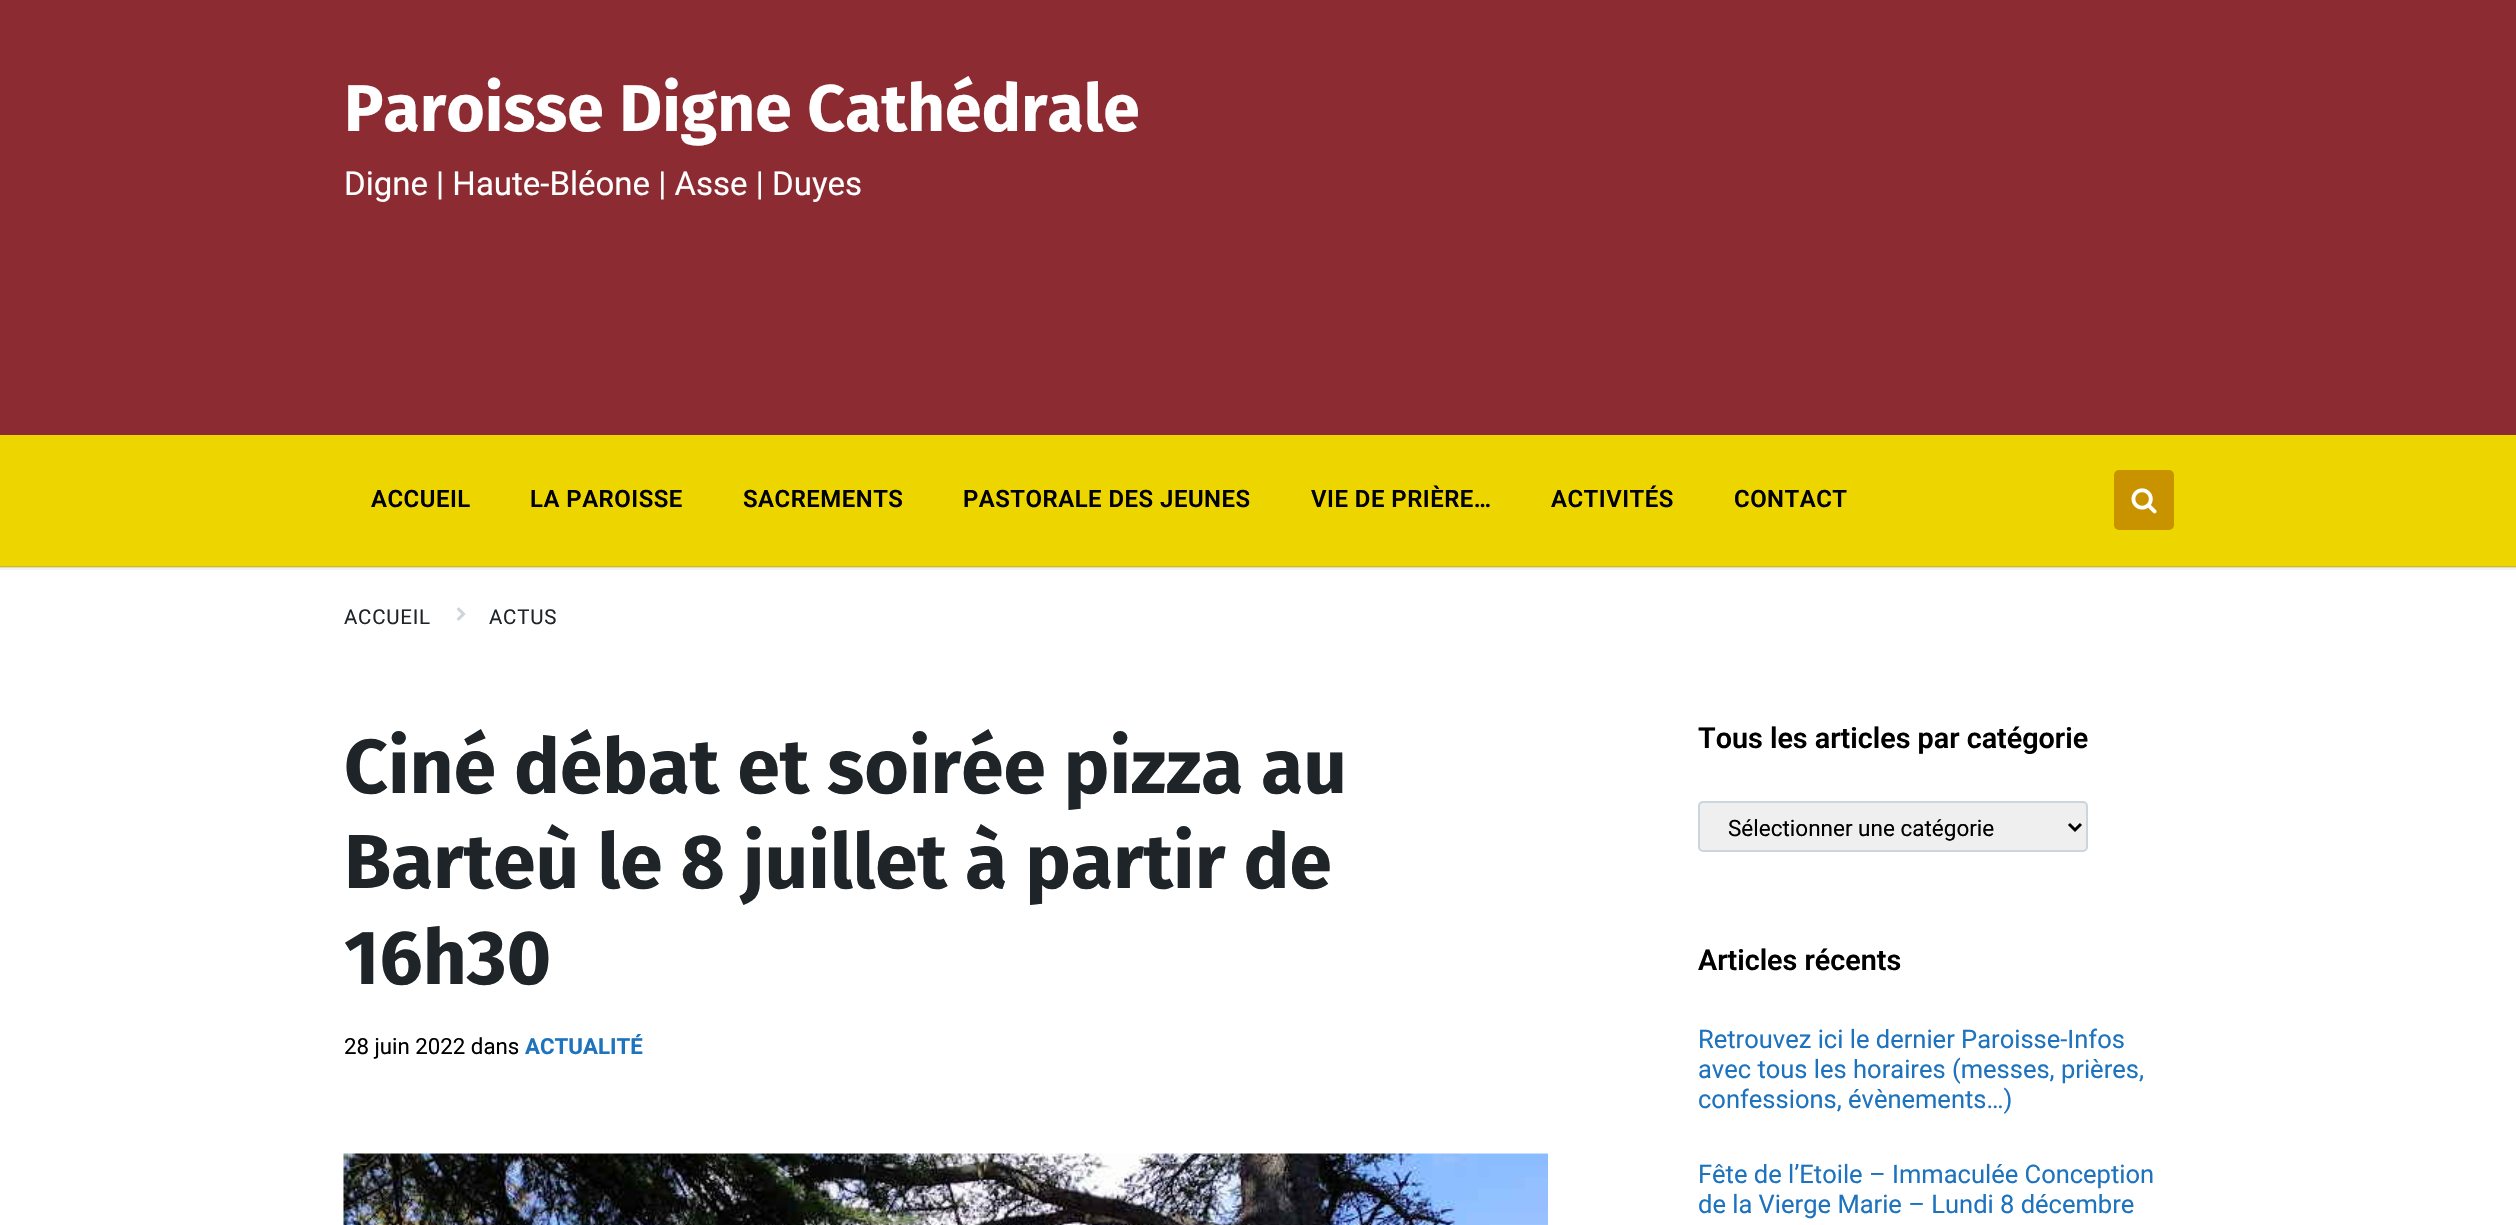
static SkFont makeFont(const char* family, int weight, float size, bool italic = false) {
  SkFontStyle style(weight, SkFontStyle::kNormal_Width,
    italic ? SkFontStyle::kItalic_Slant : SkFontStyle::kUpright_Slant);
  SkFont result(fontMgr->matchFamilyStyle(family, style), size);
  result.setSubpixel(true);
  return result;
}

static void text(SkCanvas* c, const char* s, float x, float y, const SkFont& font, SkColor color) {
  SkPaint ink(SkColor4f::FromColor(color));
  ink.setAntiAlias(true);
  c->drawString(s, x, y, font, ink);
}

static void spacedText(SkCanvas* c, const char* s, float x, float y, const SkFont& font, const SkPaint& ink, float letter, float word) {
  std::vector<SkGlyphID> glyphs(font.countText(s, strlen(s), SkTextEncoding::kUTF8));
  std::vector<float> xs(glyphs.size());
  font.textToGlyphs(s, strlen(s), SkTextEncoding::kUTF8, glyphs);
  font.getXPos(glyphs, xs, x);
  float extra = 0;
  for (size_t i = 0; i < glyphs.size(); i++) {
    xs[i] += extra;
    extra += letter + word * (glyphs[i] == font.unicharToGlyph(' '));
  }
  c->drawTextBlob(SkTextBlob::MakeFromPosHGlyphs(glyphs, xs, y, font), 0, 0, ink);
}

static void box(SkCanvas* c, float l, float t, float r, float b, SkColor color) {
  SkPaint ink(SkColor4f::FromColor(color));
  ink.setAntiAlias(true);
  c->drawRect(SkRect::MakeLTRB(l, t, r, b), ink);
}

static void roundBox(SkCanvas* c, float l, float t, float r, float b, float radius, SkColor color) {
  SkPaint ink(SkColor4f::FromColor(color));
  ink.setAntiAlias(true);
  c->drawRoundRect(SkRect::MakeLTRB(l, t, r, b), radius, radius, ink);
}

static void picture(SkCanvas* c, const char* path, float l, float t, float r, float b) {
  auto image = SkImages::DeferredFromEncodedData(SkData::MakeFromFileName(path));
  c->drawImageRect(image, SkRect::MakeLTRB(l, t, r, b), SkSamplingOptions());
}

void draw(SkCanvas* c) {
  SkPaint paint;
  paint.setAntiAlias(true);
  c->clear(0xffffffff);
  paint.setStyle(SkPaint::kStroke_Style);
  paint.setStrokeWidth(3);
  paint.setColor(0xfff2f2f2);
  c->drawRect(SkRect::MakeLTRB(-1.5f, 433.5f, 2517.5f, 568.5f), paint);
  box(c, 0, 0, 2516, 435, 0xff8c2b32);
  SkFont face1 = makeFont("Fira Sans", 700, 66);
  text(c, "Paroisse Digne Cathédrale", 344, 131, face1, 0xffffffff);
  SkFont face2 = makeFont("Roboto", 400, 33);
  text(c, "Digne | Haute-Bléone | Asse | Duyes", 344, 195, face2, 0xffffffff);
  box(c, 0, 435, 2516, 567, 0xffedd500);
  box(c, 0, 566, 2516, 568, 0x1a000000);
  SkFont face3 = makeFont("Roboto", 600, 23.9f);
  paint.setStyle(SkPaint::kFill_Style);
  paint.setColor(0xff000000);
  spacedText(c, "ACCUEIL", 371, 507, face3, paint, 0.5f, 0);
  spacedText(c, "LA PAROISSE", 530, 507, face3, paint, 0.5f, 0);
  spacedText(c, "SACREMENTS", 743, 507, face3, paint, 0.5f, 0);
  spacedText(c, "PASTORALE DES JEUNES", 963, 507, face3, paint, 0.5f, 0);
  spacedText(c, "VIE DE PRIÈRE…", 1311, 507, face3, paint, 0.5f, 0);
  spacedText(c, "ACTIVITÉS", 1551, 507, face3, paint, 0.5f, 0);
  spacedText(c, "CONTACT", 1734, 507, face3, paint, 0.5f, 0);
  roundBox(c, 2114, 470, 2174, 530, 5, 0xffc99300);
  picture(c, "img_01.png", 2131, 488, 2157, 514);
  SkFont face4 = makeFont("Roboto", 400, 20.5f);
  paint.setColor(0xff1e2427);
  spacedText(c, "ACCUEIL", 344, 624, face4, paint, 0.75f, 0);
  picture(c, "img_02.png", 456, 607, 466, 621);
  spacedText(c, "ACTUS", 489, 624, face4, paint, 0.75f, 0);
  SkFont face5 = makeFont("Fira Sans", 700, 76.5f);
  text(c, "Ciné débat et soirée pizza au", 344, 793, face5, 0xff1e2427);
  text(c, "Barteù le 8 juillet à partir de", 344, 888, face5, 0xff1e2427);
  text(c, "16h30", 344, 984, face5, 0xff1e2427);
  SkFont face6 = makeFont("Roboto", 400, 22.25f);
  text(c, "28 juin 2022 dans", 344, 1054, face6, 0xff000000);
  SkFont face7 = makeFont("Roboto", 700, 22.25f);
  text(c, "ACTUALITÉ", 525, 1054, face7, 0xff1e73be);
  picture(c, "img_03.png", 343, 1153, 1548, 1225);
  SkFont face8 = makeFont("Roboto", 600, 28.75f);
  text(c, "Tous les articles par catégorie", 1698, 748, face8, 0xff000000);
  paint.setColor(0xffefefef);
  c->drawRoundRect(SkRect::MakeLTRB(1699, 802, 2087, 851), 4, 4, paint);
  paint.setStyle(SkPaint::kStroke_Style);
  paint.setStrokeWidth(2);
  paint.setColor(0xffccd5db);
  c->drawRoundRect(SkRect::MakeLTRB(1699, 802, 2087, 851), 4, 4, paint);
  paint.setStrokeWidth(3);
  paint.setColor(0xff000000);
  c->drawPath(SkPathBuilder().moveTo(2069, 824).lineTo(2075, 830).lineTo(2081, 824).detach(), paint);
  SkFont face9 = makeFont("Roboto", 400, 22.5f);
  text(c, "Sélectionner une catégorie", 1728, 836, face9, 0xff000000);
  text(c, "Articles récents", 1698, 970, face8, 0xff000000);
  SkFont face10 = makeFont("Roboto", 400, 25.5f);
  text(c, "Retrouvez ici le dernier Paroisse-Infos", 1698, 1048, face10, 0xff1e73be);
  text(c, "avec tous les horaires (messes, prières,", 1698, 1078, face10, 0xff1e73be);
  text(c, "confessions, évènements…)", 1698, 1108, face10, 0xff1e73be);
  text(c, "Fête de l’Etoile – Immaculée Conception", 1698, 1183, face10, 0xff1e73be);
  text(c, "de la Vierge Marie – Lundi 8 décembre", 1698, 1213, face10, 0xff1e73be);
}
